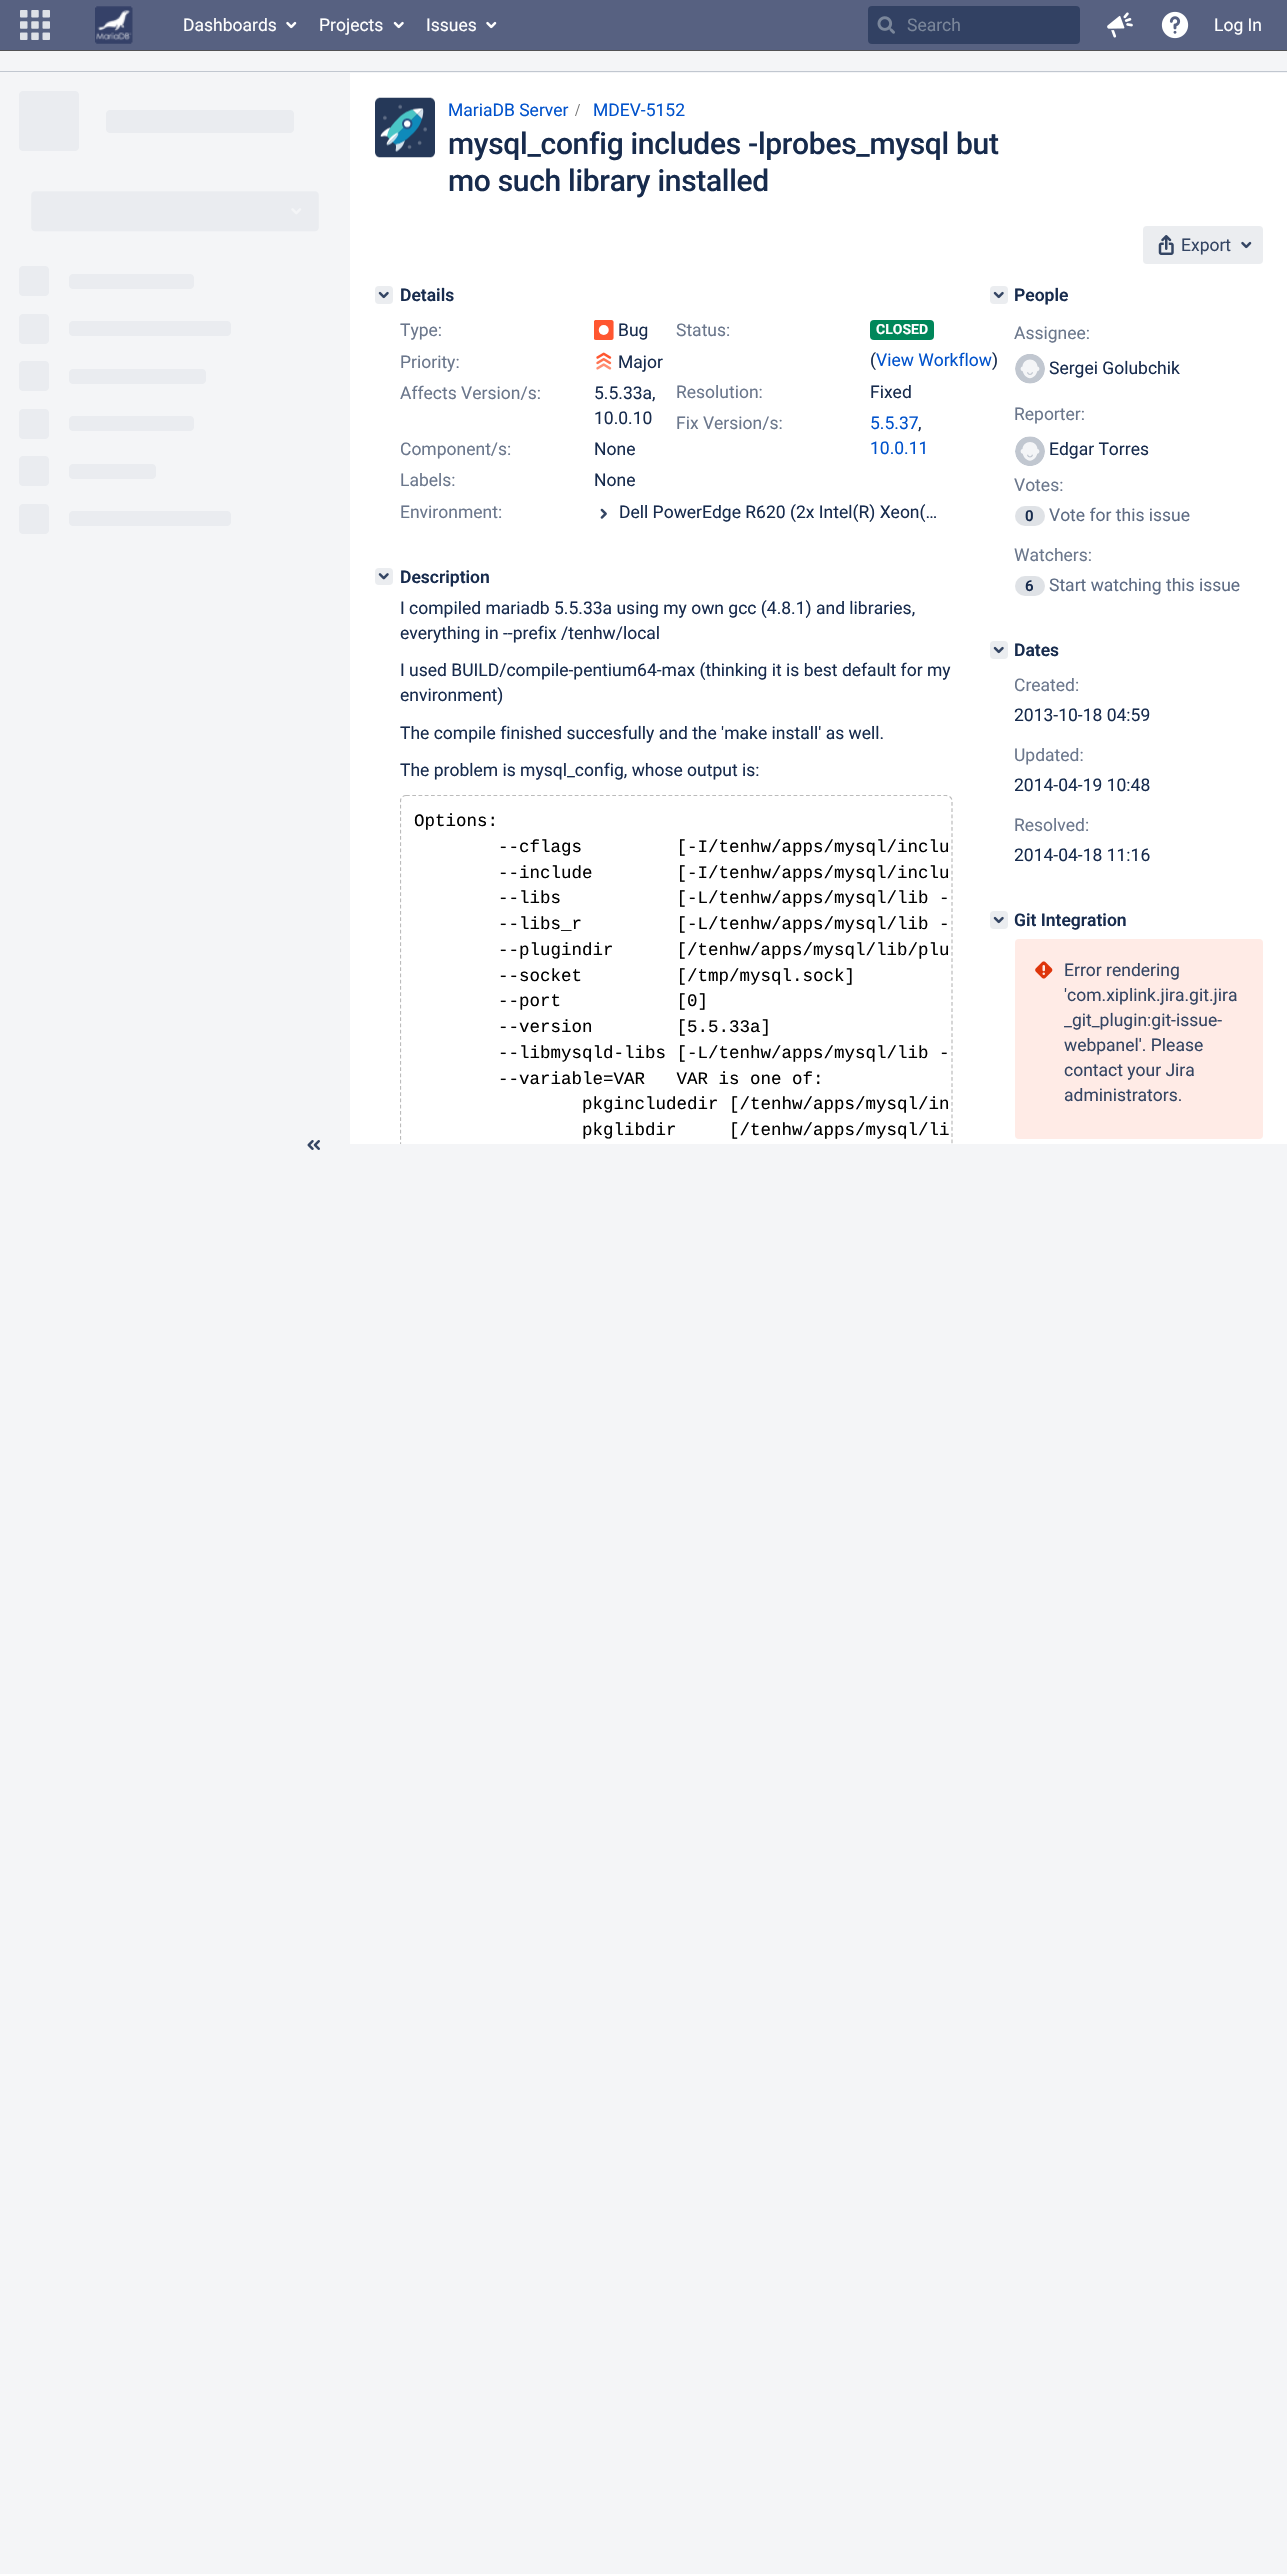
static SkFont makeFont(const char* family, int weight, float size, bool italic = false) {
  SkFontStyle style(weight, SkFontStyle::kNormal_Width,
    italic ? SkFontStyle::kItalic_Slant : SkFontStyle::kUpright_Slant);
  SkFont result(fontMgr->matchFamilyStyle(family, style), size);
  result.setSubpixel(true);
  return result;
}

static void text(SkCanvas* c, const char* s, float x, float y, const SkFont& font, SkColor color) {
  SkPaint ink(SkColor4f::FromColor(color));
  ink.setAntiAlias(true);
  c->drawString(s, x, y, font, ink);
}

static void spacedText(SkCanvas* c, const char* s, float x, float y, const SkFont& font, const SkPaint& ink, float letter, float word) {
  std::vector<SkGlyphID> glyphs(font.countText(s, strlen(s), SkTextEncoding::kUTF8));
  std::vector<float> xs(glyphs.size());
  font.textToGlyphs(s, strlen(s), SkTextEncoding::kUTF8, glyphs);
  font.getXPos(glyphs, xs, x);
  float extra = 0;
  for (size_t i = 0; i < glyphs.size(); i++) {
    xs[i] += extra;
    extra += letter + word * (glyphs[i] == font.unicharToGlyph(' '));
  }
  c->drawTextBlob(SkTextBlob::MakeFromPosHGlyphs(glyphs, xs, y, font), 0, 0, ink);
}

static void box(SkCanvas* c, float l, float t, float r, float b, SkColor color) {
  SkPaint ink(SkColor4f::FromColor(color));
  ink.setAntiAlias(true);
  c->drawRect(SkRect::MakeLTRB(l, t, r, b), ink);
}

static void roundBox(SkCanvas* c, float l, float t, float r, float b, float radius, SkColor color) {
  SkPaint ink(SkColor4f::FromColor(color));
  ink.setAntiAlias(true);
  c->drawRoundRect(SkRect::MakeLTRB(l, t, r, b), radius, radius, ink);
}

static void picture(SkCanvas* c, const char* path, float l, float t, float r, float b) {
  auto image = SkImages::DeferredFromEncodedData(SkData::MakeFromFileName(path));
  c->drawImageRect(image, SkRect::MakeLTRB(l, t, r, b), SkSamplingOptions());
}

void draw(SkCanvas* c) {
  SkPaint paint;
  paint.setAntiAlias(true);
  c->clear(0xfff4f5f7);
  box(c, 0, 0, 1287, 50, 0xff576181);
  box(c, 0, 50, 1287, 51, 0xff525254);
  picture(c, "img_01.png", 20, 10, 50, 40);
  picture(c, "img_02.png", 95, 6, 133, 44);
  SkFont face1 = makeFont("Roboto", 400, 17.5f);
  text(c, "Dashboards", 183, 31, face1, 0xffffffff);
  picture(c, "img_03.png", 286, 21, 297, 29);
  text(c, "Projects", 319, 31, face1, 0xffffffff);
  picture(c, "img_04.png", 393, 21, 404, 29);
  text(c, "Issues", 426, 31, face1, 0xffffffff);
  picture(c, "img_03.png", 486, 21, 497, 29);
  roundBox(c, 868, 6, 1080, 44, 4, 0xff324163);
  picture(c, "img_05.png", 877, 16, 895, 34);
  text(c, "Search", 907, 31, face1, 0xff7a869a);
  picture(c, "img_06.png", 1107, 12, 1133, 38);
  picture(c, "img_07.png", 1161, 11, 1189, 39);
  text(c, "Log In", 1214, 31, face1, 0xffffffff);
  box(c, 0, 71, 1287, 72, 0xffc1c7d0);
  picture(c, "img_08.png", 19, 91, 319, 534);
  picture(c, "img_09.png", 307, 1140, 320, 1150);
  box(c, 350, 73, 1287, 1144, 0xffffffff);
  picture(c, "img_10.png", 375, 97, 435, 158);
  text(c, "MariaDB Server", 448, 116, face1, 0xff0052cc);
  paint.setColor(0xff707070);
  c->drawPath(SkPathBuilder().moveTo(576, 116).lineTo(580, 104).lineTo(579, 104).lineTo(575, 116).close().detach(), paint);
  text(c, "MDEV-5152", 593, 116, face1, 0xff0052cc);
  SkFont face2 = makeFont("Roboto", 500, 30);
  paint.setColor(0xff172b4d);
  spacedText(c, "mysql_config includes -lprobes_mysql but", 448, 154, face2, paint, -0.3f, 0);
  spacedText(c, "mo such library installed", 448, 191, face2, paint, -0.3f, 0);
  roundBox(c, 1143, 226, 1263, 264, 4, 0xffebedf0);
  picture(c, "img_11.png", 1158, 235, 1174, 255);
  text(c, "Export", 1181, 251, face1, 0xff344563);
  picture(c, "img_12.png", 1241, 241, 1252, 249);
  roundBox(c, 375, 286, 393, 304, 4, 0xffebedf0);
  picture(c, "img_13.png", 378, 291, 389, 299);
  SkFont face3 = makeFont("Roboto", 600, 17.5f);
  text(c, "Details", 400, 301, face3, 0xff172b4d);
  text(c, "Type:", 400, 336, face1, 0xff6b778c);
  picture(c, "img_14.png", 594, 320, 614, 340);
  text(c, "Bug", 618, 336, face1, 0xff172b4d);
  text(c, "Status:", 676, 336, face1, 0xff6b778c);
  roundBox(c, 870, 320, 934, 340, 4, 0xff00875a);
  SkFont face4 = makeFont("Roboto", 700, 14);
  text(c, "CLOSED", 876, 334, face4, 0xffffffff);
  text(c, "(", 870, 366, face1, 0xff172b4d);
  text(c, "View Workflow", 876, 366, face1, 0xff0052cc);
  text(c, ")", 992, 366, face1, 0xff172b4d);
  text(c, "Priority:", 400, 368, face1, 0xff6b778c);
  picture(c, "img_15.png", 596, 352, 612, 370);
  text(c, "Major", 618, 368, face1, 0xff172b4d);
  text(c, "Affects Version/s:", 400, 399, face1, 0xff6b778c);
  text(c, "5.5.33a,", 594, 399, face1, 0xff172b4d);
  text(c, "10.0.10", 594, 424, face1, 0xff172b4d);
  text(c, "Resolution:", 676, 398, face1, 0xff6b778c);
  text(c, "Fixed", 870, 398, face1, 0xff172b4d);
  text(c, "Component/s:", 400, 455, face1, 0xff6b778c);
  text(c, "None", 594, 455, face1, 0xff172b4d);
  text(c, "Fix Version/s:", 676, 429, face1, 0xff6b778c);
  text(c, "5.5.37", 870, 429, face1, 0xff0052cc);
  text(c, ",", 918, 429, face1, 0xff172b4d);
  text(c, "10.0.11", 870, 454, face1, 0xff0052cc);
  text(c, "Labels:", 400, 486, face1, 0xff6b778c);
  text(c, "None", 594, 486, face1, 0xff172b4d);
  text(c, "Environment:", 400, 518, face1, 0xff6b778c);
  picture(c, "img_16.png", 600, 508, 607, 519);
  text(c, "Dell PowerEdge R620 (2x Intel(R) Xeon(…", 619, 518, face1, 0xff172b4d);
  roundBox(c, 375, 568, 393, 585, 4, 0xffebedf0);
  picture(c, "img_17.png", 378, 573, 389, 580);
  text(c, "Description", 400, 583, face3, 0xff172b4d);
  text(c, "I compiled mariadb 5.5.33a using my own gcc (4.8.1) and libraries,", 400, 614, face1, 0xff172b4d);
  text(c, "everything in --prefix /tenhw/local", 400, 639, face1, 0xff172b4d);
  text(c, "I used BUILD/compile-pentium64-max (thinking it is best default for my", 400, 676, face1, 0xff172b4d);
  text(c, "environment)", 400, 701, face1, 0xff172b4d);
  text(c, "The compile finished succesfully and the 'make install' as well.", 400, 739, face1, 0xff172b4d);
  text(c, "The problem is mysql_config, whose output is:", 400, 776, face1, 0xff172b4d);
  c->save();
  c->clipRect(SkRect::MakeLTRB(400, 595, 953, 1144));
  paint.setStyle(SkPaint::kStroke_Style);
  paint.setStrokeWidth(1.2f);
  paint.setColor(0xffbbbbbb);
  paint.setPathEffect(SkDashPathEffect::Make({{3.75f, 2.5f}}, 0));
  c->drawPath(SkPathBuilder().moveTo(406, 795.5f).lineTo(946, 795.5f).cubicTo(949.5f, 795.5f, 952, 798, 952, 801).lineTo(952, 1176).cubicTo(952, 1179.5f, 949.5f, 1182, 946, 1182).lineTo(406, 1182).cubicTo(403, 1182, 400.5f, 1179.5f, 400.5f, 1176).lineTo(400.5f, 801).cubicTo(400.5f, 798, 403, 795.5f, 406, 795.5f).close().detach(), paint);
  paint.setPathEffect(nullptr);
  c->restore();
  SkFont face5 = makeFont("Liberation Mono", 400, 17.5f);
  text(c, "Options:", 414, 826, face5, 0xff000000);
  text(c, "--cflags         [-I/tenhw/apps/mysql/inclu", 498, 852, face5, 0xff000000);
  text(c, "--include        [-I/tenhw/apps/mysql/inclu", 498, 878, face5, 0xff000000);
  text(c, "--libs           [-L/tenhw/apps/mysql/lib -", 498, 903, face5, 0xff000000);
  text(c, "--libs_r         [-L/tenhw/apps/mysql/lib -", 498, 929, face5, 0xff000000);
  text(c, "--plugindir      [/tenhw/apps/mysql/lib/plu", 498, 955, face5, 0xff000000);
  text(c, "--socket         [/tmp/mysql.sock]", 498, 981, face5, 0xff000000);
  text(c, "--port           [0]", 498, 1006, face5, 0xff000000);
  text(c, "--version        [5.5.33a]", 498, 1032, face5, 0xff000000);
  text(c, "--libmysqld-libs [-L/tenhw/apps/mysql/lib -", 498, 1058, face5, 0xff000000);
  text(c, "--variable=VAR   VAR is one of:", 498, 1084, face5, 0xff000000);
  text(c, "pkgincludedir [/tenhw/apps/mysql/in", 582, 1109, face5, 0xff000000);
  text(c, "pkglibdir     [/tenhw/apps/mysql/li", 582, 1135, face5, 0xff000000);
  roundBox(c, 990, 286, 1008, 304, 4, 0xffebedf0);
  picture(c, "img_13.png", 993, 291, 1004, 299);
  text(c, "People", 1014, 301, face3, 0xff172b4d);
  text(c, "Assignee:", 1014, 339, face1, 0xff6b778c);
  picture(c, "img_18.png", 1015, 354, 1045, 384);
  text(c, "Sergei Golubchik", 1049, 374, face1, 0xff172b4d);
  text(c, "Reporter:", 1014, 420, face1, 0xff6b778c);
  picture(c, "img_19.png", 1015, 436, 1045, 466);
  text(c, "Edgar Torres", 1049, 455, face1, 0xff172b4d);
  text(c, "Votes:", 1014, 491, face1, 0xff6b778c);
  roundBox(c, 1015, 506, 1045, 526, 10, 0xffdfe2e6);
  SkFont face6 = makeFont("Roboto", 600, 15);
  text(c, "0", 1025, 521, face6, 0xff172b4d);
  text(c, "Vote for this issue", 1049, 521, face1, 0xff5e6c84);
  text(c, "Watchers:", 1014, 561, face1, 0xff6b778c);
  roundBox(c, 1015, 576, 1045, 596, 10, 0xffdfe2e6);
  text(c, "6", 1025, 591, face6, 0xff172b4d);
  text(c, "Start watching this issue", 1049, 591, face1, 0xff5e6c84);
  roundBox(c, 990, 641, 1008, 659, 4, 0xffebedf0);
  picture(c, "img_13.png", 993, 646, 1004, 654);
  text(c, "Dates", 1014, 656, face3, 0xff172b4d);
  text(c, "Created:", 1014, 691, face1, 0xff6b778c);
  text(c, "2013-10-18 04:59", 1014, 721, face1, 0xff172b4d);
  text(c, "Updated:", 1014, 761, face1, 0xff6b778c);
  text(c, "2014-04-19 10:48", 1014, 791, face1, 0xff172b4d);
  text(c, "Resolved:", 1014, 831, face1, 0xff6b778c);
  text(c, "2014-04-18 11:16", 1014, 861, face1, 0xff172b4d);
  roundBox(c, 990, 911, 1008, 929, 4, 0xffebedf0);
  picture(c, "img_13.png", 993, 916, 1004, 924);
  text(c, "Git Integration", 1014, 926, face3, 0xff172b4d);
  roundBox(c, 1015, 939, 1263, 1139, 4, 0xffffebe6);
  picture(c, "img_20.png", 1035, 961, 1053, 979);
  text(c, "Error rendering", 1064, 976, face1, 0xff344563);
  text(c, "'com.xiplink.jira.git.jira", 1064, 1001, face1, 0xff344563);
  text(c, "_git_plugin:git-issue-", 1064, 1026, face1, 0xff344563);
  text(c, "webpanel'. Please", 1064, 1051, face1, 0xff344563);
  text(c, "contact your Jira", 1064, 1076, face1, 0xff344563);
  text(c, "administrators.", 1064, 1101, face1, 0xff344563);
}
